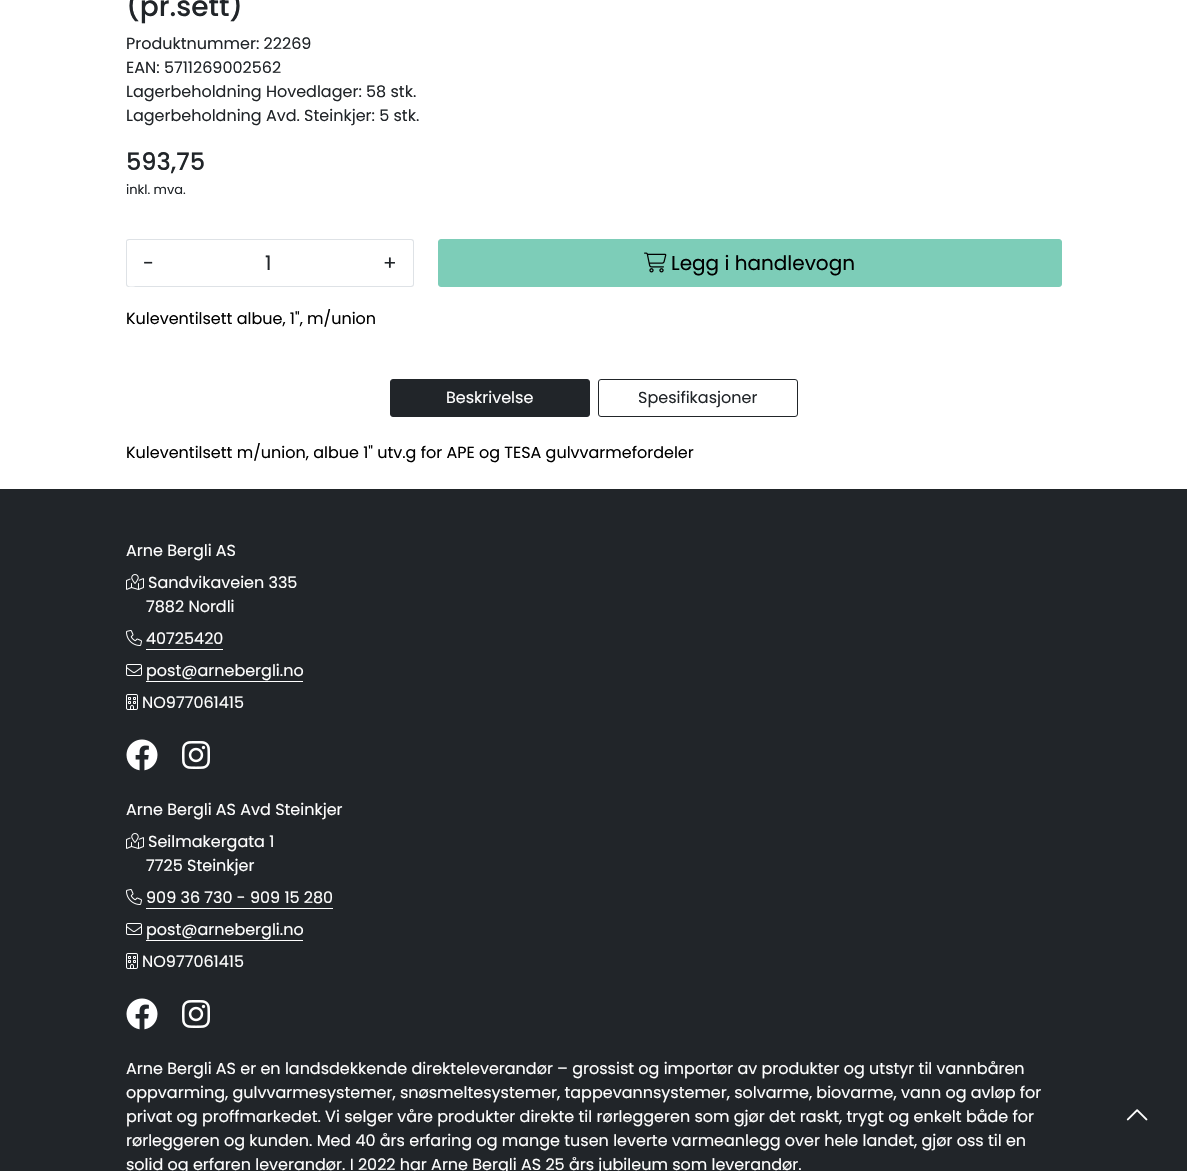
static SkFont makeFont(const char* family, int weight, float size, bool italic = false) {
  SkFontStyle style(weight, SkFontStyle::kNormal_Width,
    italic ? SkFontStyle::kItalic_Slant : SkFontStyle::kUpright_Slant);
  SkFont result(fontMgr->matchFamilyStyle(family, style), size);
  result.setSubpixel(true);
  return result;
}

static void text(SkCanvas* c, const char* s, float x, float y, const SkFont& font, SkColor color) {
  SkPaint ink(SkColor4f::FromColor(color));
  ink.setAntiAlias(true);
  c->drawString(s, x, y, font, ink);
}

static void box(SkCanvas* c, float l, float t, float r, float b, SkColor color) {
  SkPaint ink(SkColor4f::FromColor(color));
  ink.setAntiAlias(true);
  c->drawRect(SkRect::MakeLTRB(l, t, r, b), ink);
}

static void picture(SkCanvas* c, const char* path, float l, float t, float r, float b) {
  auto image = SkImages::DeferredFromEncodedData(SkData::MakeFromFileName(path));
  c->drawImageRect(image, SkRect::MakeLTRB(l, t, r, b), SkSamplingOptions());
}

void draw(SkCanvas* c) {
  SkPaint paint;
  paint.setAntiAlias(true);
  c->clear(0xffffffff);
  SkFont face1 = makeFont("Poppins", 500, 28);
  text(c, "(pr.sett)", 126, 16, face1, 0xff212529);
  SkFont face2 = makeFont("Poppins", 400, 16);
  text(c, "Produktnummer: 22269", 126, 49, face2, 0xff212529);
  text(c, "EAN: 5711269002562", 126, 73, face2, 0xff212529);
  text(c, "Lagerbeholdning Hovedlager: 58 stk.", 126, 97, face2, 0xff212529);
  text(c, "Lagerbeholdning Avd. Steinkjer: 5 stk.", 126, 121, face2, 0xff212529);
  SkFont face3 = makeFont("Poppins", 500, 24);
  text(c, "593,75", 126, 170, face3, 0xff212529);
  SkFont face4 = makeFont("Poppins", 400, 13);
  text(c, "inkl. mva.", 126, 194, face4, 0xff212529);
  box(c, 169, 239, 368, 240, 0xffdee2e6);
  box(c, 169, 286, 368, 287, 0xffdee2e6);
  paint.setColor(0xffffffff);
  c->drawPath(SkPathBuilder().moveTo(129, 239).lineTo(170, 239).lineTo(170, 287).lineTo(129, 287).cubicTo(127.5f, 287, 126, 285.5f, 126, 284).lineTo(126, 242).cubicTo(126, 240.5f, 127.5f, 239, 129, 239).close().detach(), paint);
  paint.setColor(0xffdee2e6);
  c->drawPath(SkPathBuilder(SkPathFillType::kEvenOdd).moveTo(129, 239).lineTo(170, 239).lineTo(170, 287).lineTo(129, 287).cubicTo(127, 287, 126, 286, 126, 284).lineTo(126, 242).cubicTo(126, 240, 127, 239, 129, 239).close().moveTo(129, 240).lineTo(170, 240).lineTo(170, 286).lineTo(136, 286).cubicTo(136, 286, 127, 288, 127, 284).lineTo(127, 241).close().detach(), paint);
  SkFont face5 = makeFont("Poppins", 400, 20);
  text(c, "-", 143, 270, face5, 0xff212529);
  text(c, "1", 265, 270, face5, 0xff212529);
  paint.setColor(0xffffffff);
  c->drawPath(SkPathBuilder().moveTo(367, 239).lineTo(411, 239).cubicTo(412.5f, 239, 414, 240.5f, 414, 242).lineTo(414, 284).cubicTo(414, 285.5f, 412.5f, 287, 411, 287).lineTo(367, 287).close().detach(), paint);
  paint.setColor(0xffdee2e6);
  c->drawPath(SkPathBuilder(SkPathFillType::kEvenOdd).moveTo(367, 239).lineTo(411, 239).cubicTo(413, 239, 414, 240, 414, 242).lineTo(414, 284).cubicTo(414, 286, 413, 287, 411, 287).lineTo(367, 287).close().moveTo(367, 240).lineTo(411, 240).cubicTo(412, 240, 413, 241, 413, 242).lineTo(413, 284).cubicTo(413, 285, 412, 286, 411, 286).lineTo(367, 286).close().detach(), paint);
  text(c, "+", 383, 270, face5, 0xff212529);
  paint.setColor(0xff7dcdb8);
  c->drawRoundRect(SkRect::MakeLTRB(438.5f, 239.5f, 1061.5f, 286.5f), 2.5f, 2.5f, paint);
  paint.setStyle(SkPaint::kStroke_Style);
  paint.setStrokeWidth(1);
  c->drawRoundRect(SkRect::MakeLTRB(438.5f, 239.5f, 1061.5f, 286.5f), 2.5f, 2.5f, paint);
  picture(c, "img_01.png", 644, 252, 667, 273);
  text(c, "Legg i handlevogn", 671, 270, face5, 0xff000000);
  text(c, "Kuleventilsett albue, 1\", m/union", 126, 324, face2, 0xff000000);
  paint.setStyle(SkPaint::kFill_Style);
  paint.setColor(0xff212529);
  c->drawRoundRect(SkRect::MakeLTRB(390.5f, 379.5f, 589.5f, 416.5f), 2.5f, 2.5f, paint);
  paint.setStyle(SkPaint::kStroke_Style);
  c->drawRoundRect(SkRect::MakeLTRB(390.5f, 379.5f, 589.5f, 416.5f), 2.5f, 2.5f, paint);
  text(c, "Beskrivelse", 446, 403, face2, 0xffffffff);
  c->drawRoundRect(SkRect::MakeLTRB(598.5f, 379.5f, 797.5f, 416.5f), 2.5f, 2.5f, paint);
  text(c, "Spesifikasjoner", 638, 403, face2, 0xff212529);
  text(c, "Kuleventilsett m/union, albue 1\" utv.g for APE og TESA gulvvarmefordeler", 126, 458, face2, 0xff000000);
  box(c, 0, 489, 1187, 1171, 0xff212529);
  picture(c, "img_02.png", 1126, 1109, 1148, 1121);
  text(c, "Arne Bergli AS", 126, 556, face2, 0xffffffff);
  picture(c, "img_03.png", 126, 574, 144, 590);
  text(c, "Sandvikaveien 335", 148, 588, face2, 0xffffffff);
  text(c, "7882 Nordli", 146, 612, face2, 0xffffffff);
  picture(c, "img_04.png", 126, 630, 142, 646);
  text(c, "40725420", 146, 644, face2, 0xffffffff);
  box(c, 146, 649, 223, 650, 0xffffffff);
  picture(c, "img_05.png", 126, 664, 142, 676);
  text(c, "post@arnebergli.no", 146, 676, face2, 0xffffffff);
  box(c, 146, 681, 303, 682, 0xffffffff);
  picture(c, "img_06.png", 126, 694, 138, 710);
  text(c, "NO977061415", 142, 708, face2, 0xffffffff);
  picture(c, "img_07.png", 126, 739, 158, 771);
  picture(c, "img_08.png", 182, 741, 210, 769);
  text(c, "Arne Bergli AS Avd Steinkjer", 126, 815, face2, 0xffffffff);
  picture(c, "img_03.png", 126, 833, 144, 849);
  text(c, "Seilmakergata 1", 148, 847, face2, 0xffffffff);
  text(c, "7725 Steinkjer", 146, 871, face2, 0xffffffff);
  picture(c, "img_04.png", 126, 889, 142, 905);
  text(c, "909 36 730 - 909 15 280", 146, 903, face2, 0xffffffff);
  box(c, 146, 908, 333, 909, 0xffffffff);
  picture(c, "img_05.png", 126, 923, 142, 935);
  text(c, "post@arnebergli.no", 146, 935, face2, 0xffffffff);
  box(c, 146, 940, 303, 941, 0xffffffff);
  picture(c, "img_06.png", 126, 953, 138, 969);
  text(c, "NO977061415", 142, 967, face2, 0xffffffff);
  picture(c, "img_07.png", 126, 998, 158, 1030);
  picture(c, "img_08.png", 182, 1000, 210, 1028);
  text(c, "Arne Bergli AS er en landsdekkende direkteleverandør – grossist og importør av produkter og utstyr til vannbåren", 126, 1074, face2, 0xffffffff);
  text(c, "oppvarming, gulvvarmesystemer, snøsmeltesystemer, tappevannsystemer, solvarme, biovarme, vann og avløp for", 126, 1098, face2, 0xffffffff);
  text(c, "privat og proffmarkedet. Vi selger våre produkter direkte til rørleggeren som gjør det raskt, trygt og enkelt både for", 126, 1122, face2, 0xffffffff);
  text(c, "rørleggeren og kunden. Med 40 års erfaring og mange tusen leverte varmeanlegg over hele landet, gjør oss til en", 126, 1146, face2, 0xffffffff);
  text(c, "solid og erfaren leverandør. I 2022 har Arne Bergli AS 25 års jubileum som leverandør.", 126, 1170, face2, 0xffffffff);
}
